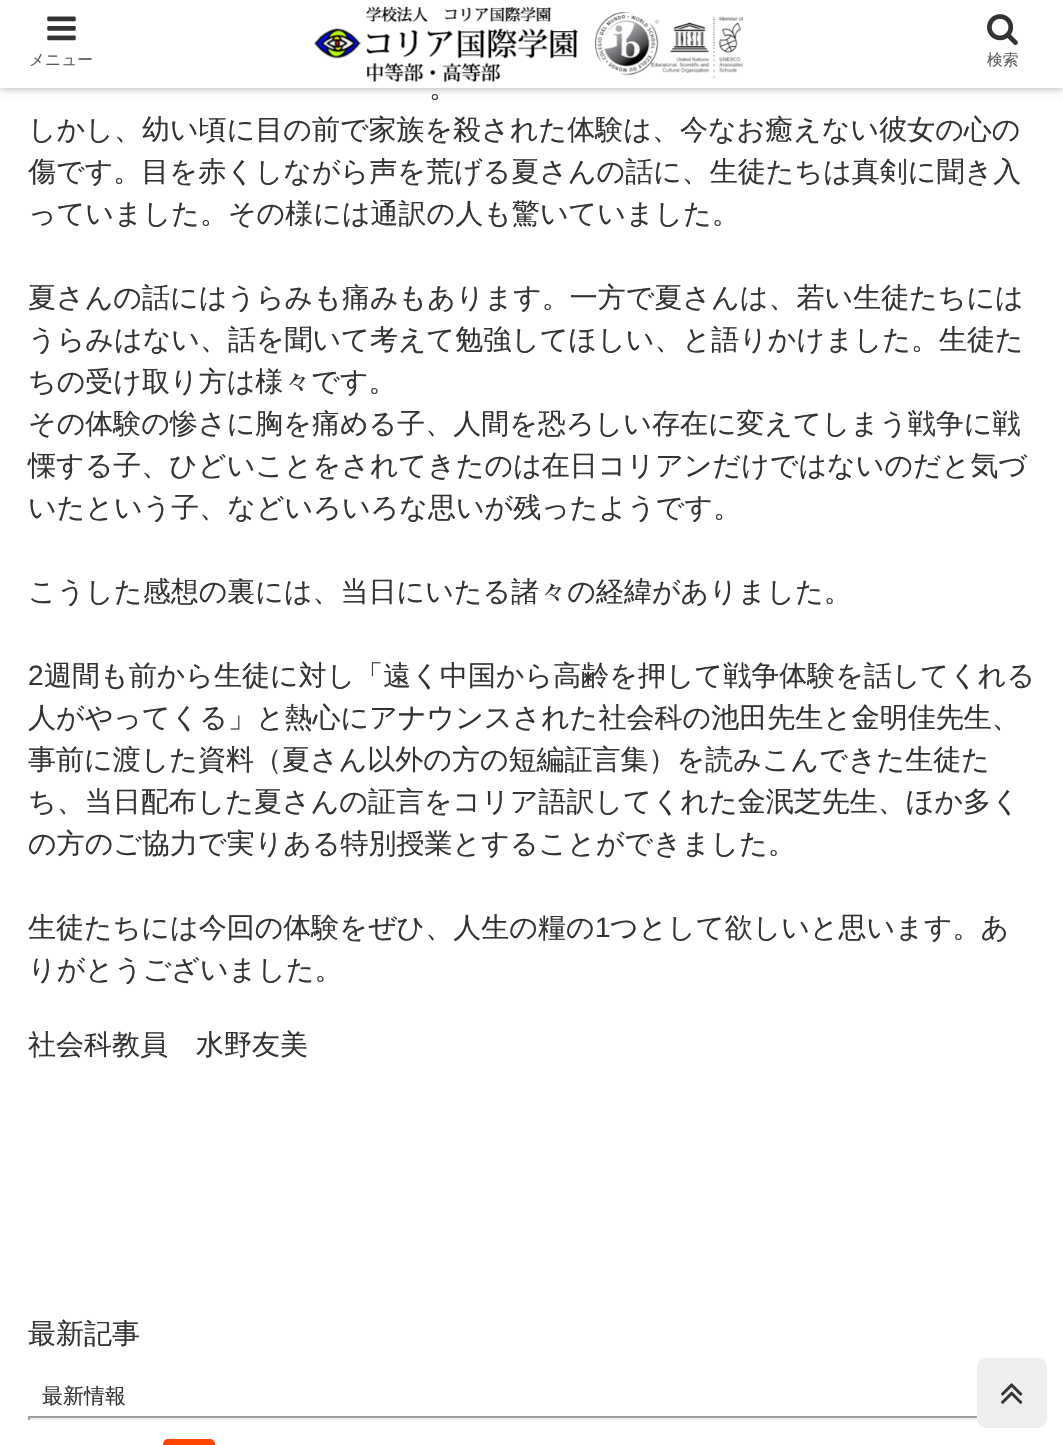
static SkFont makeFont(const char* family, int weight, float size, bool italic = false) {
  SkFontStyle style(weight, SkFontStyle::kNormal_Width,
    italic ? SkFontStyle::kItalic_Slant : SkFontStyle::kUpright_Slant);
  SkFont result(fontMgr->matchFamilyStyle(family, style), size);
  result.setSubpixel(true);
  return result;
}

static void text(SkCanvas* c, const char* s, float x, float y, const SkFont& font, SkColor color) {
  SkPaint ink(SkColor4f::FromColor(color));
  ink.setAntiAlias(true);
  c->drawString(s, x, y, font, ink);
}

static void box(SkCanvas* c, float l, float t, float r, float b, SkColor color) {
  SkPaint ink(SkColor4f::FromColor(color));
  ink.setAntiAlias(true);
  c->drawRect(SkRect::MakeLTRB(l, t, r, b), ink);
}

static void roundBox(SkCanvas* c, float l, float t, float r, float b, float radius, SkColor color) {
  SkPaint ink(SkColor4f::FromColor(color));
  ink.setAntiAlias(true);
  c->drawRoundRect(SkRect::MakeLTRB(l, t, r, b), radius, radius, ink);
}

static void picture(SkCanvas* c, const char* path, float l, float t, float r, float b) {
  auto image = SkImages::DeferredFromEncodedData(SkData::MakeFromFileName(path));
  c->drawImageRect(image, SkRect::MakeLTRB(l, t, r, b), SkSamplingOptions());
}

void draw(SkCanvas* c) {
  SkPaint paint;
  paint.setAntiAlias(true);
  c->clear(0xffffffff);
  paint.setColor(0xffa9a9a9);
  paint.setMaskFilter(SkMaskFilter::MakeBlur(kNormal_SkBlurStyle, 4.5f));
  c->drawRect(SkRect::MakeLTRB(0, 0, 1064, 88), paint);
  paint.setMaskFilter(nullptr);
  box(c, 0, 0, 1063, 88, 0xffffffff);
  picture(c, "img_01.png", 47, 16, 76, 41);
  SkFont face1 = makeFont("WenQuanYi Zen Hei", 500, 15.75f);
  text(c, "メニュー", 29, 65, face1, 0xff5c5c5c);
  picture(c, "img_02.png", 314, 6, 744, 83);
  picture(c, "img_03.png", 987, 14, 1018, 45);
  text(c, "検索", 987, 65, face1, 0xff5c5c5c);
  SkFont face2 = makeFont("WenQuanYi Zen Hei", 500, 28);
  text(c, "。", 429, 97, face2, 0xff333333);
  text(c, "しかし、幼い頃に目の前で家族を殺された体験は、今なお癒えない彼女の心の", 28, 139, face2, 0xff333333);
  text(c, "傷です。目を赤くしながら声を荒げる夏さんの話に、生徒たちは真剣に聞き入", 28, 181, face2, 0xff333333);
  text(c, "っていました。その様には通訳の人も驚いていました。", 28, 223, face2, 0xff333333);
  text(c, "夏さんの話にはうらみも痛みもあります。一方で夏さんは、若い生徒たちには", 28, 307, face2, 0xff333333);
  text(c, "うらみはない、話を聞いて考えて勉強してほしい、と語りかけました。生徒た", 28, 349, face2, 0xff333333);
  text(c, "ちの受け取り方は様々です。", 28, 391, face2, 0xff333333);
  text(c, "その体験の惨さに胸を痛める子、人間を恐ろしい存在に変えてしまう戦争に戦", 28, 433, face2, 0xff333333);
  text(c, "慄する子、ひどいことをされてきたのは在日コリアンだけではないのだと気づ", 28, 475, face2, 0xff333333);
  text(c, "いたという子、などいろいろな思いが残ったようです。", 28, 517, face2, 0xff333333);
  text(c, "こうした感想の裏には、当日にいたる諸々の経緯がありました。", 28, 601, face2, 0xff333333);
  SkFont face3 = makeFont("Liberation Sans", 400, 28);
  text(c, "2", 28, 685, face3, 0xff333333);
  text(c, "週間も前から生徒に対し「遠く中国から高齢を押して戦争体験を話してくれる", 44, 685, face2, 0xff333333);
  text(c, "人がやってくる」と熱心にアナウンスされた社会科の池田先生と金明佳先生、", 28, 727, face2, 0xff333333);
  text(c, "事前に渡した資料（夏さん以外の方の短編証言集）を読みこんできた生徒た", 28, 769, face2, 0xff333333);
  text(c, "ち、当日配布した夏さんの証言をコリア語訳してくれた金泯芝先生、ほか多く", 28, 811, face2, 0xff333333);
  text(c, "の方のご協力で実りある特別授業とすることができました。", 28, 853, face2, 0xff333333);
  text(c, "生徒たちには今回の体験をぜひ、人生の糧の", 28, 937, face2, 0xff333333);
  text(c, "1", 595, 937, face3, 0xff333333);
  text(c, "つとして欲しいと思います。あ", 610, 937, face2, 0xff333333);
  text(c, "りがとうございました。", 28, 979, face2, 0xff333333);
  text(c, "社会科教員　水野友美", 28, 1054, face2, 0xff333333);
  text(c, "最新記事", 28, 1343, face2, 0xff333333);
  SkFont face4 = makeFont("WenQuanYi Zen Hei", 500, 21);
  text(c, "最新情報", 42, 1403, face4, 0xff333333);
  box(c, 28, 1416, 977, 1418, 0xff9f9f9f);
  box(c, 28, 1418, 978, 1420, 0xffeeeeee);
  box(c, 28, 1416, 30, 1420, 0xff9f9f9f);
  roundBox(c, 163, 1439, 215, 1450, 5, 0xffff4500);
  roundBox(c, 977, 1358, 1047, 1428, 9, 0xffeeeeee);
  picture(c, "img_04.png", 1001, 1383, 1023, 1404);
}
